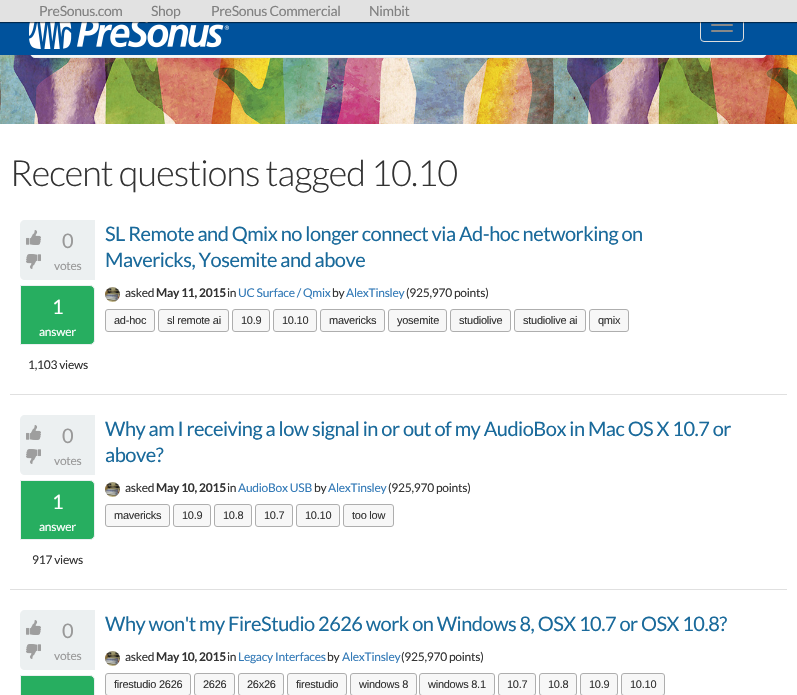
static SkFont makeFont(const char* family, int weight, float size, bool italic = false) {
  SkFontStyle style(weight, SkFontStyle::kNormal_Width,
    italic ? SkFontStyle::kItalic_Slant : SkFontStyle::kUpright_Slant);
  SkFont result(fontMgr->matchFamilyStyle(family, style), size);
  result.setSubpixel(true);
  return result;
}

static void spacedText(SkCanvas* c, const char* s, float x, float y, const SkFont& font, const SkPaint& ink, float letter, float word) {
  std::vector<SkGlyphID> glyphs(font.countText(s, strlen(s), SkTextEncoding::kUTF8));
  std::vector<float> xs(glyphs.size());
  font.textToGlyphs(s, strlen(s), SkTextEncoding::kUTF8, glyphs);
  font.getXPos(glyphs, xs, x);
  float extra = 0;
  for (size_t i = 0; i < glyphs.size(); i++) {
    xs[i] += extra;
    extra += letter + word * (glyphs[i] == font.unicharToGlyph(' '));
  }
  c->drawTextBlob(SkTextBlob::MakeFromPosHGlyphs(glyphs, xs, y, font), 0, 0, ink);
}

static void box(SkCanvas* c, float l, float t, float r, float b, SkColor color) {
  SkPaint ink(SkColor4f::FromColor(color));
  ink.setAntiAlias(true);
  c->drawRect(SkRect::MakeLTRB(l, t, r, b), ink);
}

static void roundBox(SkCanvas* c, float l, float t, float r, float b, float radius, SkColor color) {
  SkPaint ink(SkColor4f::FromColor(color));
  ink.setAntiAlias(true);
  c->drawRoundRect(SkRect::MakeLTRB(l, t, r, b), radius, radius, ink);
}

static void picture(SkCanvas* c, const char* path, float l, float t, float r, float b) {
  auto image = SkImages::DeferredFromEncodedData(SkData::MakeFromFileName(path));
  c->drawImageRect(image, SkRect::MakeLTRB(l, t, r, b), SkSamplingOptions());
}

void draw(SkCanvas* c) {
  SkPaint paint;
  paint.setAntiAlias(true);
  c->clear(0xffffffff);
  picture(c, "img_01.png", 0, 55, 797, 124);
  paint.setColor(0xfff5f7f7);
  c->drawRoundRect(SkRect::MakeLTRB(30.5f, -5.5f, 766.5f, 57.5f), 4.5f, 4.5f, paint);
  paint.setStyle(SkPaint::kStroke_Style);
  paint.setStrokeWidth(1);
  paint.setColor(0xffe6ebed);
  c->drawRoundRect(SkRect::MakeLTRB(30.5f, -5.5f, 766.5f, 57.5f), 4.5f, 4.5f, paint);
  box(c, 0, 22, 797, 55, 0xff00529c);
  picture(c, "img_02.png", 29, 22, 229, 49);
  paint.setColor(0xffdddddd);
  c->drawRoundRect(SkRect::MakeLTRB(700.5f, 8.5f, 743.5f, 41.5f), 3.5f, 3.5f, paint);
  roundBox(c, 711, 24, 733, 26, 1, 0xff888888);
  paint.setStyle(SkPaint::kFill_Style);
  paint.setColor(0x80000000);
  paint.setMaskFilter(SkMaskFilter::MakeBlur(kNormal_SkBlurStyle, 0.5f));
  c->drawRect(SkRect::MakeLTRB(-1, -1, 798, 23), paint);
  paint.setMaskFilter(nullptr);
  box(c, 0, 0, 797, 22, 0xffe2e2e2);
  SkFont face1 = makeFont("Lato", 400, 14);
  paint.setColor(0xff808080);
  spacedText(c, "PreSonus.com", 39, 16, face1, paint, -0.3f, 0);
  spacedText(c, "Shop", 151, 16, face1, paint, -0.3f, 0);
  spacedText(c, "PreSonus Commercial", 211, 16, face1, paint, -0.3f, 0);
  spacedText(c, "Nimbit", 369, 16, face1, paint, -0.3f, 0);
  roundBox(c, 711, 30, 733, 32, 1, 0xff888888);
  SkFont face2 = makeFont("Lato", 300, 36);
  paint.setColor(0xff333333);
  spacedText(c, "Recent questions tagged 10.10", 10, 186, face2, paint, -0.9f, 0);
  box(c, 10, 394, 787, 395, 0xffe0e0e0);
  paint.setColor(0xffecf0f1);
  c->drawPath(SkPathBuilder().moveTo(25, 220).lineTo(95, 220).lineTo(95, 280).lineTo(25, 280).cubicTo(22, 280, 20, 278, 20, 275).lineTo(20, 225).cubicTo(20, 222, 22, 220, 25, 220).close().detach(), paint);
  picture(c, "img_03.png", 26, 230, 41, 245);
  picture(c, "img_04.png", 26, 254, 41, 269);
  SkFont face3 = makeFont("Lato", 400, 20);
  paint.setColor(0xff999999);
  spacedText(c, "0", 62, 248, face3, paint, -0.5f, 0);
  SkFont face4 = makeFont("Lato", 400, 12);
  spacedText(c, "votes", 54, 270, face4, paint, -0.25f, 0);
  paint.setColor(0xff27ae60);
  c->drawPath(SkPathBuilder().moveTo(20.5f, 285.5f).lineTo(90, 285.5f).cubicTo(92.5f, 285.5f, 94.5f, 287.5f, 94.5f, 290).lineTo(94.5f, 340).cubicTo(94.5f, 342.5f, 92.5f, 344.5f, 90, 344.5f).lineTo(20.5f, 344.5f).close().detach(), paint);
  paint.setStyle(SkPaint::kStroke_Style);
  paint.setColor(0xffecf0f1);
  c->drawPath(SkPathBuilder().moveTo(20.5f, 285.5f).lineTo(90, 285.5f).cubicTo(92.5f, 285.5f, 94.5f, 287.5f, 94.5f, 290).lineTo(94.5f, 340).cubicTo(94.5f, 342.5f, 92.5f, 344.5f, 90, 344.5f).lineTo(20.5f, 344.5f).close().detach(), paint);
  paint.setStyle(SkPaint::kFill_Style);
  paint.setColor(0xffffffff);
  spacedText(c, "1", 52, 314, face3, paint, -0.5f, 0);
  spacedText(c, "answer", 39, 336, face4, paint, -0.25f, 0);
  paint.setColor(0xff333333);
  spacedText(c, "1,103 views", 28, 369, face4, paint, -0.25f, 0);
  paint.setColor(0xff1a6a9b);
  spacedText(c, "SL Remote and Qmix no longer connect via Ad-hoc networking on", 105, 241, face3, paint, -0.5f, 0);
  spacedText(c, "Mavericks, Yosemite and above", 105, 267, face3, paint, -0.5f, 0);
  picture(c, "img_05.png", 105, 287, 120, 302);
  paint.setColor(0xff333333);
  spacedText(c, "asked", 125, 297, face4, paint, -0.25f, 0);
  SkFont face5 = makeFont("Lato", 700, 12);
  spacedText(c, "May 11, 2015", 156, 297, face5, paint, -0.25f, 0);
  spacedText(c, "in", 227, 297, face4, paint, -0.25f, 0);
  paint.setColor(0xff337ab7);
  spacedText(c, "UC Surface / Qmix", 238, 297, face4, paint, -0.25f, 0);
  paint.setColor(0xff333333);
  spacedText(c, "by", 332, 297, face4, paint, -0.25f, 0);
  paint.setColor(0xff337ab7);
  spacedText(c, "AlexTinsley", 346, 297, face4, paint, -0.25f, 0);
  paint.setColor(0xff333333);
  spacedText(c, "(925,970 points)", 406, 297, face4, paint, -0.25f, 0);
  paint.setColor(0xfff7f7f7);
  c->drawRoundRect(SkRect::MakeLTRB(105.5f, 309.5f, 154.5f, 331.5f), 2.5f, 2.5f, paint);
  paint.setStyle(SkPaint::kStroke_Style);
  paint.setColor(0xffaeaeae);
  c->drawRoundRect(SkRect::MakeLTRB(105.5f, 309.5f, 154.5f, 331.5f), 2.5f, 2.5f, paint);
  SkFont face6 = makeFont("Liberation Sans", 400, 11);
  paint.setStyle(SkPaint::kFill_Style);
  paint.setColor(0xff333333);
  spacedText(c, "ad-hoc", 114, 324, face6, paint, -0.25f, 0);
  paint.setColor(0xfff7f7f7);
  c->drawRoundRect(SkRect::MakeLTRB(158.5f, 309.5f, 228.5f, 331.5f), 2.5f, 2.5f, paint);
  paint.setStyle(SkPaint::kStroke_Style);
  paint.setColor(0xffaeaeae);
  c->drawRoundRect(SkRect::MakeLTRB(158.5f, 309.5f, 228.5f, 331.5f), 2.5f, 2.5f, paint);
  paint.setStyle(SkPaint::kFill_Style);
  paint.setColor(0xff333333);
  spacedText(c, "sl remote ai", 167, 324, face6, paint, -0.25f, 0);
  paint.setColor(0xfff7f7f7);
  c->drawRoundRect(SkRect::MakeLTRB(232.5f, 309.5f, 269.5f, 331.5f), 2.5f, 2.5f, paint);
  paint.setStyle(SkPaint::kStroke_Style);
  paint.setColor(0xffaeaeae);
  c->drawRoundRect(SkRect::MakeLTRB(232.5f, 309.5f, 269.5f, 331.5f), 2.5f, 2.5f, paint);
  paint.setStyle(SkPaint::kFill_Style);
  paint.setColor(0xff333333);
  spacedText(c, "10.9", 241, 324, face6, paint, -0.25f, 0);
  paint.setColor(0xfff7f7f7);
  c->drawRoundRect(SkRect::MakeLTRB(273.5f, 309.5f, 316.5f, 331.5f), 2.5f, 2.5f, paint);
  paint.setStyle(SkPaint::kStroke_Style);
  paint.setColor(0xffaeaeae);
  c->drawRoundRect(SkRect::MakeLTRB(273.5f, 309.5f, 316.5f, 331.5f), 2.5f, 2.5f, paint);
  paint.setStyle(SkPaint::kFill_Style);
  paint.setColor(0xff333333);
  spacedText(c, "10.10", 282, 324, face6, paint, -0.25f, 0);
  paint.setColor(0xfff7f7f7);
  c->drawRoundRect(SkRect::MakeLTRB(320.5f, 309.5f, 384.5f, 331.5f), 2.5f, 2.5f, paint);
  paint.setStyle(SkPaint::kStroke_Style);
  paint.setColor(0xffaeaeae);
  c->drawRoundRect(SkRect::MakeLTRB(320.5f, 309.5f, 384.5f, 331.5f), 2.5f, 2.5f, paint);
  paint.setStyle(SkPaint::kFill_Style);
  paint.setColor(0xff333333);
  spacedText(c, "mavericks", 329, 324, face6, paint, -0.25f, 0);
  paint.setColor(0xfff7f7f7);
  c->drawRoundRect(SkRect::MakeLTRB(388.5f, 309.5f, 446.5f, 331.5f), 2.5f, 2.5f, paint);
  paint.setStyle(SkPaint::kStroke_Style);
  paint.setColor(0xffaeaeae);
  c->drawRoundRect(SkRect::MakeLTRB(388.5f, 309.5f, 446.5f, 331.5f), 2.5f, 2.5f, paint);
  paint.setStyle(SkPaint::kFill_Style);
  paint.setColor(0xff333333);
  spacedText(c, "yosemite", 397, 324, face6, paint, -0.25f, 0);
  paint.setColor(0xfff7f7f7);
  c->drawRoundRect(SkRect::MakeLTRB(450.5f, 309.5f, 510.5f, 331.5f), 2.5f, 2.5f, paint);
  paint.setStyle(SkPaint::kStroke_Style);
  paint.setColor(0xffaeaeae);
  c->drawRoundRect(SkRect::MakeLTRB(450.5f, 309.5f, 510.5f, 331.5f), 2.5f, 2.5f, paint);
  paint.setStyle(SkPaint::kFill_Style);
  paint.setColor(0xff333333);
  spacedText(c, "studiolive", 459, 324, face6, paint, -0.25f, 0);
  paint.setColor(0xfff7f7f7);
  c->drawRoundRect(SkRect::MakeLTRB(514.5f, 309.5f, 585.5f, 331.5f), 2.5f, 2.5f, paint);
  paint.setStyle(SkPaint::kStroke_Style);
  paint.setColor(0xffaeaeae);
  c->drawRoundRect(SkRect::MakeLTRB(514.5f, 309.5f, 585.5f, 331.5f), 2.5f, 2.5f, paint);
  paint.setStyle(SkPaint::kFill_Style);
  paint.setColor(0xff333333);
  spacedText(c, "studiolive ai", 523, 324, face6, paint, -0.25f, 0);
  paint.setColor(0xfff7f7f7);
  c->drawRoundRect(SkRect::MakeLTRB(589.5f, 309.5f, 628.5f, 331.5f), 2.5f, 2.5f, paint);
  paint.setStyle(SkPaint::kStroke_Style);
  paint.setColor(0xffaeaeae);
  c->drawRoundRect(SkRect::MakeLTRB(589.5f, 309.5f, 628.5f, 331.5f), 2.5f, 2.5f, paint);
  paint.setStyle(SkPaint::kFill_Style);
  paint.setColor(0xff333333);
  spacedText(c, "qmix", 598, 324, face6, paint, -0.25f, 0);
  box(c, 10, 589, 787, 590, 0xffe0e0e0);
  paint.setColor(0xffecf0f1);
  c->drawPath(SkPathBuilder().moveTo(25, 415).lineTo(95, 415).lineTo(95, 475).lineTo(25, 475).cubicTo(22, 475, 20, 473, 20, 470).lineTo(20, 420).cubicTo(20, 417, 22, 415, 25, 415).close().detach(), paint);
  picture(c, "img_03.png", 26, 425, 41, 440);
  picture(c, "img_04.png", 26, 449, 41, 464);
  paint.setColor(0xff999999);
  spacedText(c, "0", 62, 443, face3, paint, -0.5f, 0);
  spacedText(c, "votes", 54, 465, face4, paint, -0.25f, 0);
  paint.setColor(0xff27ae60);
  c->drawPath(SkPathBuilder().moveTo(20.5f, 480.5f).lineTo(90, 480.5f).cubicTo(92.5f, 480.5f, 94.5f, 482.5f, 94.5f, 485).lineTo(94.5f, 535).cubicTo(94.5f, 537.5f, 92.5f, 539.5f, 90, 539.5f).lineTo(20.5f, 539.5f).close().detach(), paint);
  paint.setStyle(SkPaint::kStroke_Style);
  paint.setColor(0xffecf0f1);
  c->drawPath(SkPathBuilder().moveTo(20.5f, 480.5f).lineTo(90, 480.5f).cubicTo(92.5f, 480.5f, 94.5f, 482.5f, 94.5f, 485).lineTo(94.5f, 535).cubicTo(94.5f, 537.5f, 92.5f, 539.5f, 90, 539.5f).lineTo(20.5f, 539.5f).close().detach(), paint);
  paint.setStyle(SkPaint::kFill_Style);
  paint.setColor(0xffffffff);
  spacedText(c, "1", 52, 509, face3, paint, -0.5f, 0);
  spacedText(c, "answer", 39, 531, face4, paint, -0.25f, 0);
  paint.setColor(0xff333333);
  spacedText(c, "917 views", 32, 564, face4, paint, -0.25f, 0);
  paint.setColor(0xff1a6a9b);
  spacedText(c, "Why am I receiving a low signal in or out of my AudioBox in Mac OS X 10.7 or", 105, 436, face3, paint, -0.5f, 0);
  spacedText(c, "above?", 105, 462, face3, paint, -0.5f, 0);
  picture(c, "img_05.png", 105, 482, 120, 497);
  paint.setColor(0xff333333);
  spacedText(c, "asked", 125, 492, face4, paint, -0.25f, 0);
  spacedText(c, "May 10, 2015", 156, 492, face5, paint, -0.25f, 0);
  spacedText(c, "in", 227, 492, face4, paint, -0.25f, 0);
  paint.setColor(0xff337ab7);
  spacedText(c, "AudioBox USB", 238, 492, face4, paint, -0.25f, 0);
  paint.setColor(0xff333333);
  spacedText(c, "by", 314, 492, face4, paint, -0.25f, 0);
  paint.setColor(0xff337ab7);
  spacedText(c, "AlexTinsley", 328, 492, face4, paint, -0.25f, 0);
  paint.setColor(0xff333333);
  spacedText(c, "(925,970 points)", 388, 492, face4, paint, -0.25f, 0);
  paint.setColor(0xfff7f7f7);
  c->drawRoundRect(SkRect::MakeLTRB(105.5f, 504.5f, 169.5f, 526.5f), 2.5f, 2.5f, paint);
  paint.setStyle(SkPaint::kStroke_Style);
  paint.setColor(0xffaeaeae);
  c->drawRoundRect(SkRect::MakeLTRB(105.5f, 504.5f, 169.5f, 526.5f), 2.5f, 2.5f, paint);
  paint.setStyle(SkPaint::kFill_Style);
  paint.setColor(0xff333333);
  spacedText(c, "mavericks", 114, 519, face6, paint, -0.25f, 0);
  paint.setColor(0xfff7f7f7);
  c->drawRoundRect(SkRect::MakeLTRB(173.5f, 504.5f, 210.5f, 526.5f), 2.5f, 2.5f, paint);
  paint.setStyle(SkPaint::kStroke_Style);
  paint.setColor(0xffaeaeae);
  c->drawRoundRect(SkRect::MakeLTRB(173.5f, 504.5f, 210.5f, 526.5f), 2.5f, 2.5f, paint);
  paint.setStyle(SkPaint::kFill_Style);
  paint.setColor(0xff333333);
  spacedText(c, "10.9", 182, 519, face6, paint, -0.25f, 0);
  paint.setColor(0xfff7f7f7);
  c->drawRoundRect(SkRect::MakeLTRB(214.5f, 504.5f, 251.5f, 526.5f), 2.5f, 2.5f, paint);
  paint.setStyle(SkPaint::kStroke_Style);
  paint.setColor(0xffaeaeae);
  c->drawRoundRect(SkRect::MakeLTRB(214.5f, 504.5f, 251.5f, 526.5f), 2.5f, 2.5f, paint);
  paint.setStyle(SkPaint::kFill_Style);
  paint.setColor(0xff333333);
  spacedText(c, "10.8", 223, 519, face6, paint, -0.25f, 0);
  paint.setColor(0xfff7f7f7);
  c->drawRoundRect(SkRect::MakeLTRB(255.5f, 504.5f, 292.5f, 526.5f), 2.5f, 2.5f, paint);
  paint.setStyle(SkPaint::kStroke_Style);
  paint.setColor(0xffaeaeae);
  c->drawRoundRect(SkRect::MakeLTRB(255.5f, 504.5f, 292.5f, 526.5f), 2.5f, 2.5f, paint);
  paint.setStyle(SkPaint::kFill_Style);
  paint.setColor(0xff333333);
  spacedText(c, "10.7", 264, 519, face6, paint, -0.25f, 0);
  paint.setColor(0xfff7f7f7);
  c->drawRoundRect(SkRect::MakeLTRB(296.5f, 504.5f, 339.5f, 526.5f), 2.5f, 2.5f, paint);
  paint.setStyle(SkPaint::kStroke_Style);
  paint.setColor(0xffaeaeae);
  c->drawRoundRect(SkRect::MakeLTRB(296.5f, 504.5f, 339.5f, 526.5f), 2.5f, 2.5f, paint);
  paint.setStyle(SkPaint::kFill_Style);
  paint.setColor(0xff333333);
  spacedText(c, "10.10", 305, 519, face6, paint, -0.25f, 0);
  paint.setColor(0xfff7f7f7);
  c->drawRoundRect(SkRect::MakeLTRB(343.5f, 504.5f, 393.5f, 526.5f), 2.5f, 2.5f, paint);
  paint.setStyle(SkPaint::kStroke_Style);
  paint.setColor(0xffaeaeae);
  c->drawRoundRect(SkRect::MakeLTRB(343.5f, 504.5f, 393.5f, 526.5f), 2.5f, 2.5f, paint);
  paint.setStyle(SkPaint::kFill_Style);
  paint.setColor(0xff333333);
  spacedText(c, "too low", 352, 519, face6, paint, -0.25f, 0);
  paint.setColor(0xffecf0f1);
  c->drawPath(SkPathBuilder().moveTo(25, 610).lineTo(95, 610).lineTo(95, 670).lineTo(25, 670).cubicTo(22, 670, 20, 668, 20, 665).lineTo(20, 615).cubicTo(20, 612, 22, 610, 25, 610).close().detach(), paint);
  picture(c, "img_03.png", 26, 620, 41, 635);
  picture(c, "img_04.png", 26, 644, 41, 659);
  paint.setColor(0xff999999);
  spacedText(c, "0", 62, 638, face3, paint, -0.5f, 0);
  spacedText(c, "votes", 54, 660, face4, paint, -0.25f, 0);
  paint.setColor(0xff27ae60);
  c->drawPath(SkPathBuilder().moveTo(20.5f, 675.5f).lineTo(90, 675.5f).cubicTo(92.5f, 675.5f, 94.5f, 677.5f, 94.5f, 680).lineTo(94.5f, 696).cubicTo(94.5f, 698.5f, 92.5f, 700.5f, 90, 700.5f).lineTo(20.5f, 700.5f).close().detach(), paint);
  paint.setStyle(SkPaint::kStroke_Style);
  paint.setColor(0xffecf0f1);
  c->drawPath(SkPathBuilder().moveTo(20.5f, 675.5f).lineTo(90, 675.5f).cubicTo(92.5f, 675.5f, 94.5f, 677.5f, 94.5f, 680).lineTo(94.5f, 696).cubicTo(94.5f, 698.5f, 92.5f, 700.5f, 90, 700.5f).lineTo(20.5f, 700.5f).close().detach(), paint);
  paint.setStyle(SkPaint::kFill_Style);
  paint.setColor(0xff1a6a9b);
  spacedText(c, "Why won't my FireStudio 2626 work on Windows 8, OSX 10.7 or OSX 10.8?", 105, 631, face3, paint, -0.5f, 0);
  picture(c, "img_05.png", 105, 651, 120, 666);
  paint.setColor(0xff333333);
  spacedText(c, "asked", 125, 661, face4, paint, -0.25f, 0);
  spacedText(c, "May 10, 2015", 156, 661, face5, paint, -0.25f, 0);
  spacedText(c, "in", 227, 661, face4, paint, -0.25f, 0);
  paint.setColor(0xff337ab7);
  spacedText(c, "Legacy Interfaces", 238, 661, face4, paint, -0.25f, 0);
  paint.setColor(0xff333333);
  spacedText(c, "by", 327, 661, face4, paint, -0.25f, 0);
  paint.setColor(0xff337ab7);
  spacedText(c, "AlexTinsley", 342, 661, face4, paint, -0.25f, 0);
  paint.setColor(0xff333333);
  spacedText(c, "(925,970 points)", 401, 661, face4, paint, -0.25f, 0);
  paint.setColor(0xfff7f7f7);
  c->drawRoundRect(SkRect::MakeLTRB(105.5f, 673.5f, 190.5f, 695.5f), 2.5f, 2.5f, paint);
  paint.setStyle(SkPaint::kStroke_Style);
  paint.setColor(0xffaeaeae);
  c->drawRoundRect(SkRect::MakeLTRB(105.5f, 673.5f, 190.5f, 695.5f), 2.5f, 2.5f, paint);
  paint.setStyle(SkPaint::kFill_Style);
  paint.setColor(0xff333333);
  spacedText(c, "firestudio 2626", 114, 688, face6, paint, -0.25f, 0);
  paint.setColor(0xfff7f7f7);
  c->drawRoundRect(SkRect::MakeLTRB(194.5f, 673.5f, 234.5f, 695.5f), 2.5f, 2.5f, paint);
  paint.setStyle(SkPaint::kStroke_Style);
  paint.setColor(0xffaeaeae);
  c->drawRoundRect(SkRect::MakeLTRB(194.5f, 673.5f, 234.5f, 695.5f), 2.5f, 2.5f, paint);
  paint.setStyle(SkPaint::kFill_Style);
  paint.setColor(0xff333333);
  spacedText(c, "2626", 203, 688, face6, paint, -0.25f, 0);
  paint.setColor(0xfff7f7f7);
  c->drawRoundRect(SkRect::MakeLTRB(238.5f, 673.5f, 283.5f, 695.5f), 2.5f, 2.5f, paint);
  paint.setStyle(SkPaint::kStroke_Style);
  paint.setColor(0xffaeaeae);
  c->drawRoundRect(SkRect::MakeLTRB(238.5f, 673.5f, 283.5f, 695.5f), 2.5f, 2.5f, paint);
  paint.setStyle(SkPaint::kFill_Style);
  paint.setColor(0xff333333);
  spacedText(c, "26x26", 247, 688, face6, paint, -0.25f, 0);
  paint.setColor(0xfff7f7f7);
  c->drawRoundRect(SkRect::MakeLTRB(287.5f, 673.5f, 346.5f, 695.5f), 2.5f, 2.5f, paint);
  paint.setStyle(SkPaint::kStroke_Style);
  paint.setColor(0xffaeaeae);
  c->drawRoundRect(SkRect::MakeLTRB(287.5f, 673.5f, 346.5f, 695.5f), 2.5f, 2.5f, paint);
  paint.setStyle(SkPaint::kFill_Style);
  paint.setColor(0xff333333);
  spacedText(c, "firestudio", 296, 688, face6, paint, -0.25f, 0);
  paint.setColor(0xfff7f7f7);
  c->drawRoundRect(SkRect::MakeLTRB(350.5f, 673.5f, 416.5f, 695.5f), 2.5f, 2.5f, paint);
  paint.setStyle(SkPaint::kStroke_Style);
  paint.setColor(0xffaeaeae);
  c->drawRoundRect(SkRect::MakeLTRB(350.5f, 673.5f, 416.5f, 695.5f), 2.5f, 2.5f, paint);
  paint.setStyle(SkPaint::kFill_Style);
  paint.setColor(0xff333333);
  spacedText(c, "windows 8", 359, 688, face6, paint, -0.25f, 0);
  paint.setColor(0xfff7f7f7);
  c->drawRoundRect(SkRect::MakeLTRB(419.5f, 673.5f, 494.5f, 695.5f), 2.5f, 2.5f, paint);
  paint.setStyle(SkPaint::kStroke_Style);
  paint.setColor(0xffaeaeae);
  c->drawRoundRect(SkRect::MakeLTRB(419.5f, 673.5f, 494.5f, 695.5f), 2.5f, 2.5f, paint);
  paint.setStyle(SkPaint::kFill_Style);
  paint.setColor(0xff333333);
  spacedText(c, "windows 8.1", 428, 688, face6, paint, -0.25f, 0);
  paint.setColor(0xfff7f7f7);
  c->drawRoundRect(SkRect::MakeLTRB(498.5f, 673.5f, 535.5f, 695.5f), 2.5f, 2.5f, paint);
  paint.setStyle(SkPaint::kStroke_Style);
  paint.setColor(0xffaeaeae);
  c->drawRoundRect(SkRect::MakeLTRB(498.5f, 673.5f, 535.5f, 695.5f), 2.5f, 2.5f, paint);
  paint.setStyle(SkPaint::kFill_Style);
  paint.setColor(0xff333333);
  spacedText(c, "10.7", 507, 688, face6, paint, -0.25f, 0);
  paint.setColor(0xfff7f7f7);
  c->drawRoundRect(SkRect::MakeLTRB(539.5f, 673.5f, 576.5f, 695.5f), 2.5f, 2.5f, paint);
  paint.setStyle(SkPaint::kStroke_Style);
  paint.setColor(0xffaeaeae);
  c->drawRoundRect(SkRect::MakeLTRB(539.5f, 673.5f, 576.5f, 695.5f), 2.5f, 2.5f, paint);
  paint.setStyle(SkPaint::kFill_Style);
  paint.setColor(0xff333333);
  spacedText(c, "10.8", 548, 688, face6, paint, -0.25f, 0);
  paint.setColor(0xfff7f7f7);
  c->drawRoundRect(SkRect::MakeLTRB(580.5f, 673.5f, 617.5f, 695.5f), 2.5f, 2.5f, paint);
  paint.setStyle(SkPaint::kStroke_Style);
  paint.setColor(0xffaeaeae);
  c->drawRoundRect(SkRect::MakeLTRB(580.5f, 673.5f, 617.5f, 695.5f), 2.5f, 2.5f, paint);
  paint.setStyle(SkPaint::kFill_Style);
  paint.setColor(0xff333333);
  spacedText(c, "10.9", 589, 688, face6, paint, -0.25f, 0);
  paint.setColor(0xfff7f7f7);
  c->drawRoundRect(SkRect::MakeLTRB(621.5f, 673.5f, 664.5f, 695.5f), 2.5f, 2.5f, paint);
  paint.setStyle(SkPaint::kStroke_Style);
  paint.setColor(0xffaeaeae);
  c->drawRoundRect(SkRect::MakeLTRB(621.5f, 673.5f, 664.5f, 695.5f), 2.5f, 2.5f, paint);
  paint.setStyle(SkPaint::kFill_Style);
  paint.setColor(0xff333333);
  spacedText(c, "10.10", 630, 688, face6, paint, -0.25f, 0);
}
